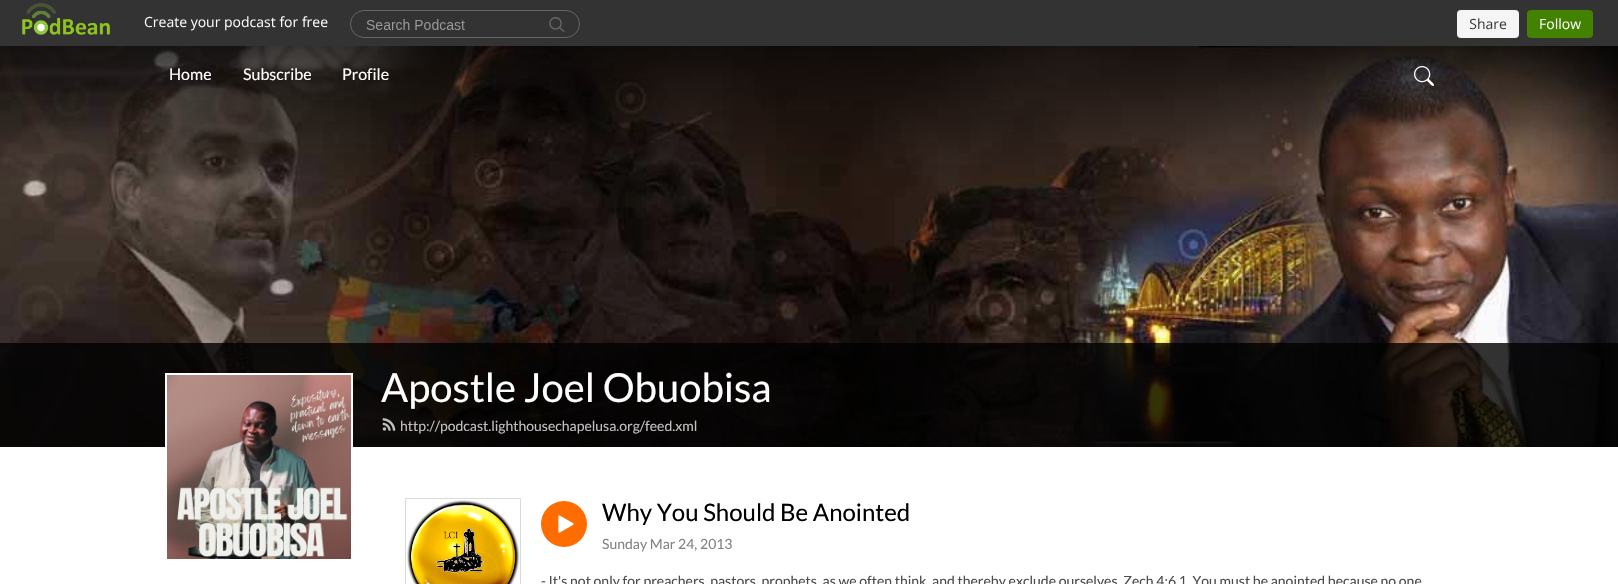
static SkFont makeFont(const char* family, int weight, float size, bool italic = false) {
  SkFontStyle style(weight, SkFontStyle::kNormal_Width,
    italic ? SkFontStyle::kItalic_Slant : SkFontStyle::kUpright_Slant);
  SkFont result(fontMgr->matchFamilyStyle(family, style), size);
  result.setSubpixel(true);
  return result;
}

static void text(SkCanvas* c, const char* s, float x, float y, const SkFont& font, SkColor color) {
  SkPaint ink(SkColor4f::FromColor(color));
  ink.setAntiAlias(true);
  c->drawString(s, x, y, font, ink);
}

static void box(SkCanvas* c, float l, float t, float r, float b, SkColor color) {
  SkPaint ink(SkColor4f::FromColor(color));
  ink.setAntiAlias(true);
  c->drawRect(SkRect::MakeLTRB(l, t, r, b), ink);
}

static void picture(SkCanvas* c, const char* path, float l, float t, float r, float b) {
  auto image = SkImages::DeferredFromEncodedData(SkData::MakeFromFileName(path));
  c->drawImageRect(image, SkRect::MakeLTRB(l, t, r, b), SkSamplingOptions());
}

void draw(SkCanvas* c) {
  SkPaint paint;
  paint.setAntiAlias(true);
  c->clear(0xffffffff);
  box(c, 0, 0, 1618, 46, 0xff333333);
  picture(c, "img_01.png", 22, 3, 1593, 38);
  picture(c, "img_03.png", 0, 46, 1618, 447);
  SkFont face1 = makeFont("Lato", 400, 16);
  text(c, "Home", 169, 80, face1, 0xffffffff);
  text(c, "Subscribe", 243, 80, face1, 0xffffffff);
  text(c, "Profile", 342, 80, face1, 0xffffffff);
  picture(c, "img_02.png", 1414, 66, 1434, 86);
  box(c, 0, 343, 1618, 447, 0xcc000000);
  SkFont face2 = makeFont("Lato", 400, 40);
  text(c, "Apostle Joel Obuobisa", 381, 402, face2, 0xffffffff);
  picture(c, "img_04.png", 382, 418, 396, 431);
  SkFont face3 = makeFont("Lato", 400, 14);
  text(c, "http://podcast.lighthousechapelusa.org/feed.xml", 400, 431, face3, 0xffc1c0c0);
  paint.setStyle(SkPaint::kStroke_Style);
  paint.setStrokeWidth(2);
  paint.setColor(0xffffffff);
  c->drawRect(SkRect::MakeLTRB(166, 374, 352, 560), paint);
  picture(c, "img_05.png", 167, 375, 351, 559);
  paint.setStrokeWidth(1);
  paint.setColor(0xffdadada);
  c->drawRect(SkRect::MakeLTRB(405.5f, 498.5f, 520.5f, 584.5f), paint);
  picture(c, "img_06.png", 407, 500, 520, 584);
  paint.setStyle(SkPaint::kFill_Style);
  paint.setColor(0xffff6d00);
  c->drawCircle(564, 524, 23, paint);
  picture(c, "img_07.png", 558, 515, 574, 533);
  SkFont face4 = makeFont("Lato", 400, 24);
  text(c, "Why You Should Be Anointed", 602, 521, face4, 0xff000000);
  text(c, "Sunday Mar 24, 2013", 602, 549, face3, 0xff838383);
  text(c, "- It's not only for preachers, pastors, prophets, as we often think, and thereby exclude ourselves. Zech 4:6 1. You must be anointed because no one", 541, 586, face3, 0xff4c4c4c);
}
